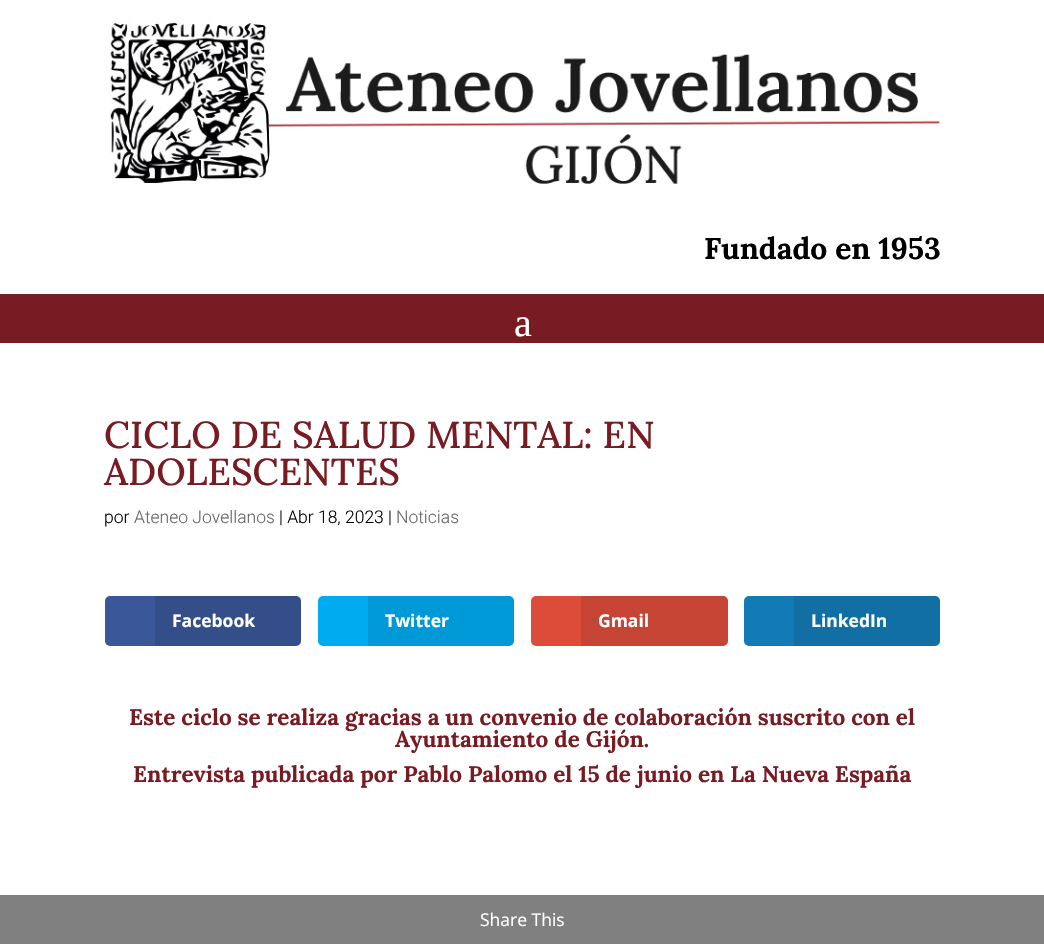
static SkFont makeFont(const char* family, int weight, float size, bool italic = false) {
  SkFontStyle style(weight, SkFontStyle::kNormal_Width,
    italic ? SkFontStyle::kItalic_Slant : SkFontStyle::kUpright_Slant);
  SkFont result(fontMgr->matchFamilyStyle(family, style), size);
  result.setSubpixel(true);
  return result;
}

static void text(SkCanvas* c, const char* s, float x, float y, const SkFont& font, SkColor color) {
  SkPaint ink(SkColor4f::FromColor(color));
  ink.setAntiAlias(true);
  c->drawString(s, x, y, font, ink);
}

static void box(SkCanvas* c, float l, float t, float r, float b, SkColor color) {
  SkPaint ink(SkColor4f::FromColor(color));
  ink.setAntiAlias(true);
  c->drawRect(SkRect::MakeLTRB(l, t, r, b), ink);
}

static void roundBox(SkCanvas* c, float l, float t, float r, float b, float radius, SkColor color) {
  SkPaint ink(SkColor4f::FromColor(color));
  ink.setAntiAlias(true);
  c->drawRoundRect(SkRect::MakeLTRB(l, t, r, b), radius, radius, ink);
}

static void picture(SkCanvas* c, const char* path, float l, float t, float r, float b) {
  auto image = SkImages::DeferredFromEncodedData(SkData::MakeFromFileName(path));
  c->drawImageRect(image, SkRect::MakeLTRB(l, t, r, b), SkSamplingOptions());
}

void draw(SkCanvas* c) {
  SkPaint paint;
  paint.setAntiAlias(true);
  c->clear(0xffffffff);
  picture(c, "img_01.png", 109, 22, 940, 184);
  SkFont face1 = makeFont("Lora", 700, 30);
  text(c, "Fundado en 1953", 704, 259, face1, 0xff000000);
  box(c, 0, 294, 1044, 343, 0xff791b22);
  SkFont face2 = makeFont("Liberation Serif", 400, 40);
  text(c, "a", 514, 336, face2, 0xffffffff);
  SkFont face3 = makeFont("Lora", 500, 37.5f);
  text(c, "CICLO DE SALUD MENTAL: EN", 104, 448, face3, 0xff791b22);
  text(c, "ADOLESCENTES", 104, 485, face3, 0xff791b22);
  SkFont face4 = makeFont("Roboto", 300, 17.5f);
  text(c, "por", 104, 523, face4, 0xff000000);
  text(c, "Ateneo Jovellanos", 134, 523, face4, 0xff666666);
  text(c, "| Abr 18, 2023 |", 279, 523, face4, 0xff000000);
  text(c, "Noticias", 396, 523, face4, 0xff666666);
  roundBox(c, 105, 596, 301, 646, 5, 0xff3a579a);
  paint.setColor(0x1a000000);
  c->drawPath(SkPathBuilder().moveTo(155, 596).lineTo(296, 596).cubicTo(299, 596, 301, 598, 301, 601).lineTo(301, 641).cubicTo(301, 644, 299, 646, 296, 646).lineTo(155, 646).close().detach(), paint);
  SkFont face5 = makeFont("Open Sans", 700, 17.5f);
  text(c, "Facebook", 172, 627, face5, 0xffffffff);
  roundBox(c, 318, 596, 514, 646, 5, 0xff00abf0);
  c->drawPath(SkPathBuilder().moveTo(368, 596).lineTo(509, 596).cubicTo(512, 596, 514, 598, 514, 601).lineTo(514, 641).cubicTo(514, 644, 512, 646, 509, 646).lineTo(368, 646).close().detach(), paint);
  text(c, "Twitter", 385, 627, face5, 0xffffffff);
  roundBox(c, 531, 596, 728, 646, 5, 0xffdd4b39);
  c->drawPath(SkPathBuilder().moveTo(581, 596).lineTo(723, 596).cubicTo(726, 596, 728, 598, 728, 601).lineTo(728, 641).cubicTo(728, 644, 726, 646, 723, 646).lineTo(581, 646).close().detach(), paint);
  text(c, "Gmail", 598, 627, face5, 0xffffffff);
  roundBox(c, 744, 596, 940, 646, 5, 0xff127bb6);
  c->drawPath(SkPathBuilder().moveTo(794, 596).lineTo(935, 596).cubicTo(938, 596, 940, 598, 940, 601).lineTo(940, 641).cubicTo(940, 644, 938, 646, 935, 646).lineTo(794, 646).close().detach(), paint);
  text(c, "LinkedIn", 811, 627, face5, 0xffffffff);
  SkFont face6 = makeFont("Lora", 700, 22.5f);
  text(c, "Este ciclo se realiza gracias a un convenio de colaboración suscrito con el", 129, 725, face6, 0xff791b22);
  text(c, "Ayuntamiento de Gijón.", 395, 747, face6, 0xff791b22);
  text(c, "Entrevista publicada por Pablo Palomo el 15 de junio en La Nueva España", 133, 782, face6, 0xff791b22);
  box(c, 0, 895, 1044, 944, 0xff808080);
  SkFont face7 = makeFont("Open Sans", 400, 17.5f);
  text(c, "Share This", 480, 926, face7, 0xffffffff);
}
